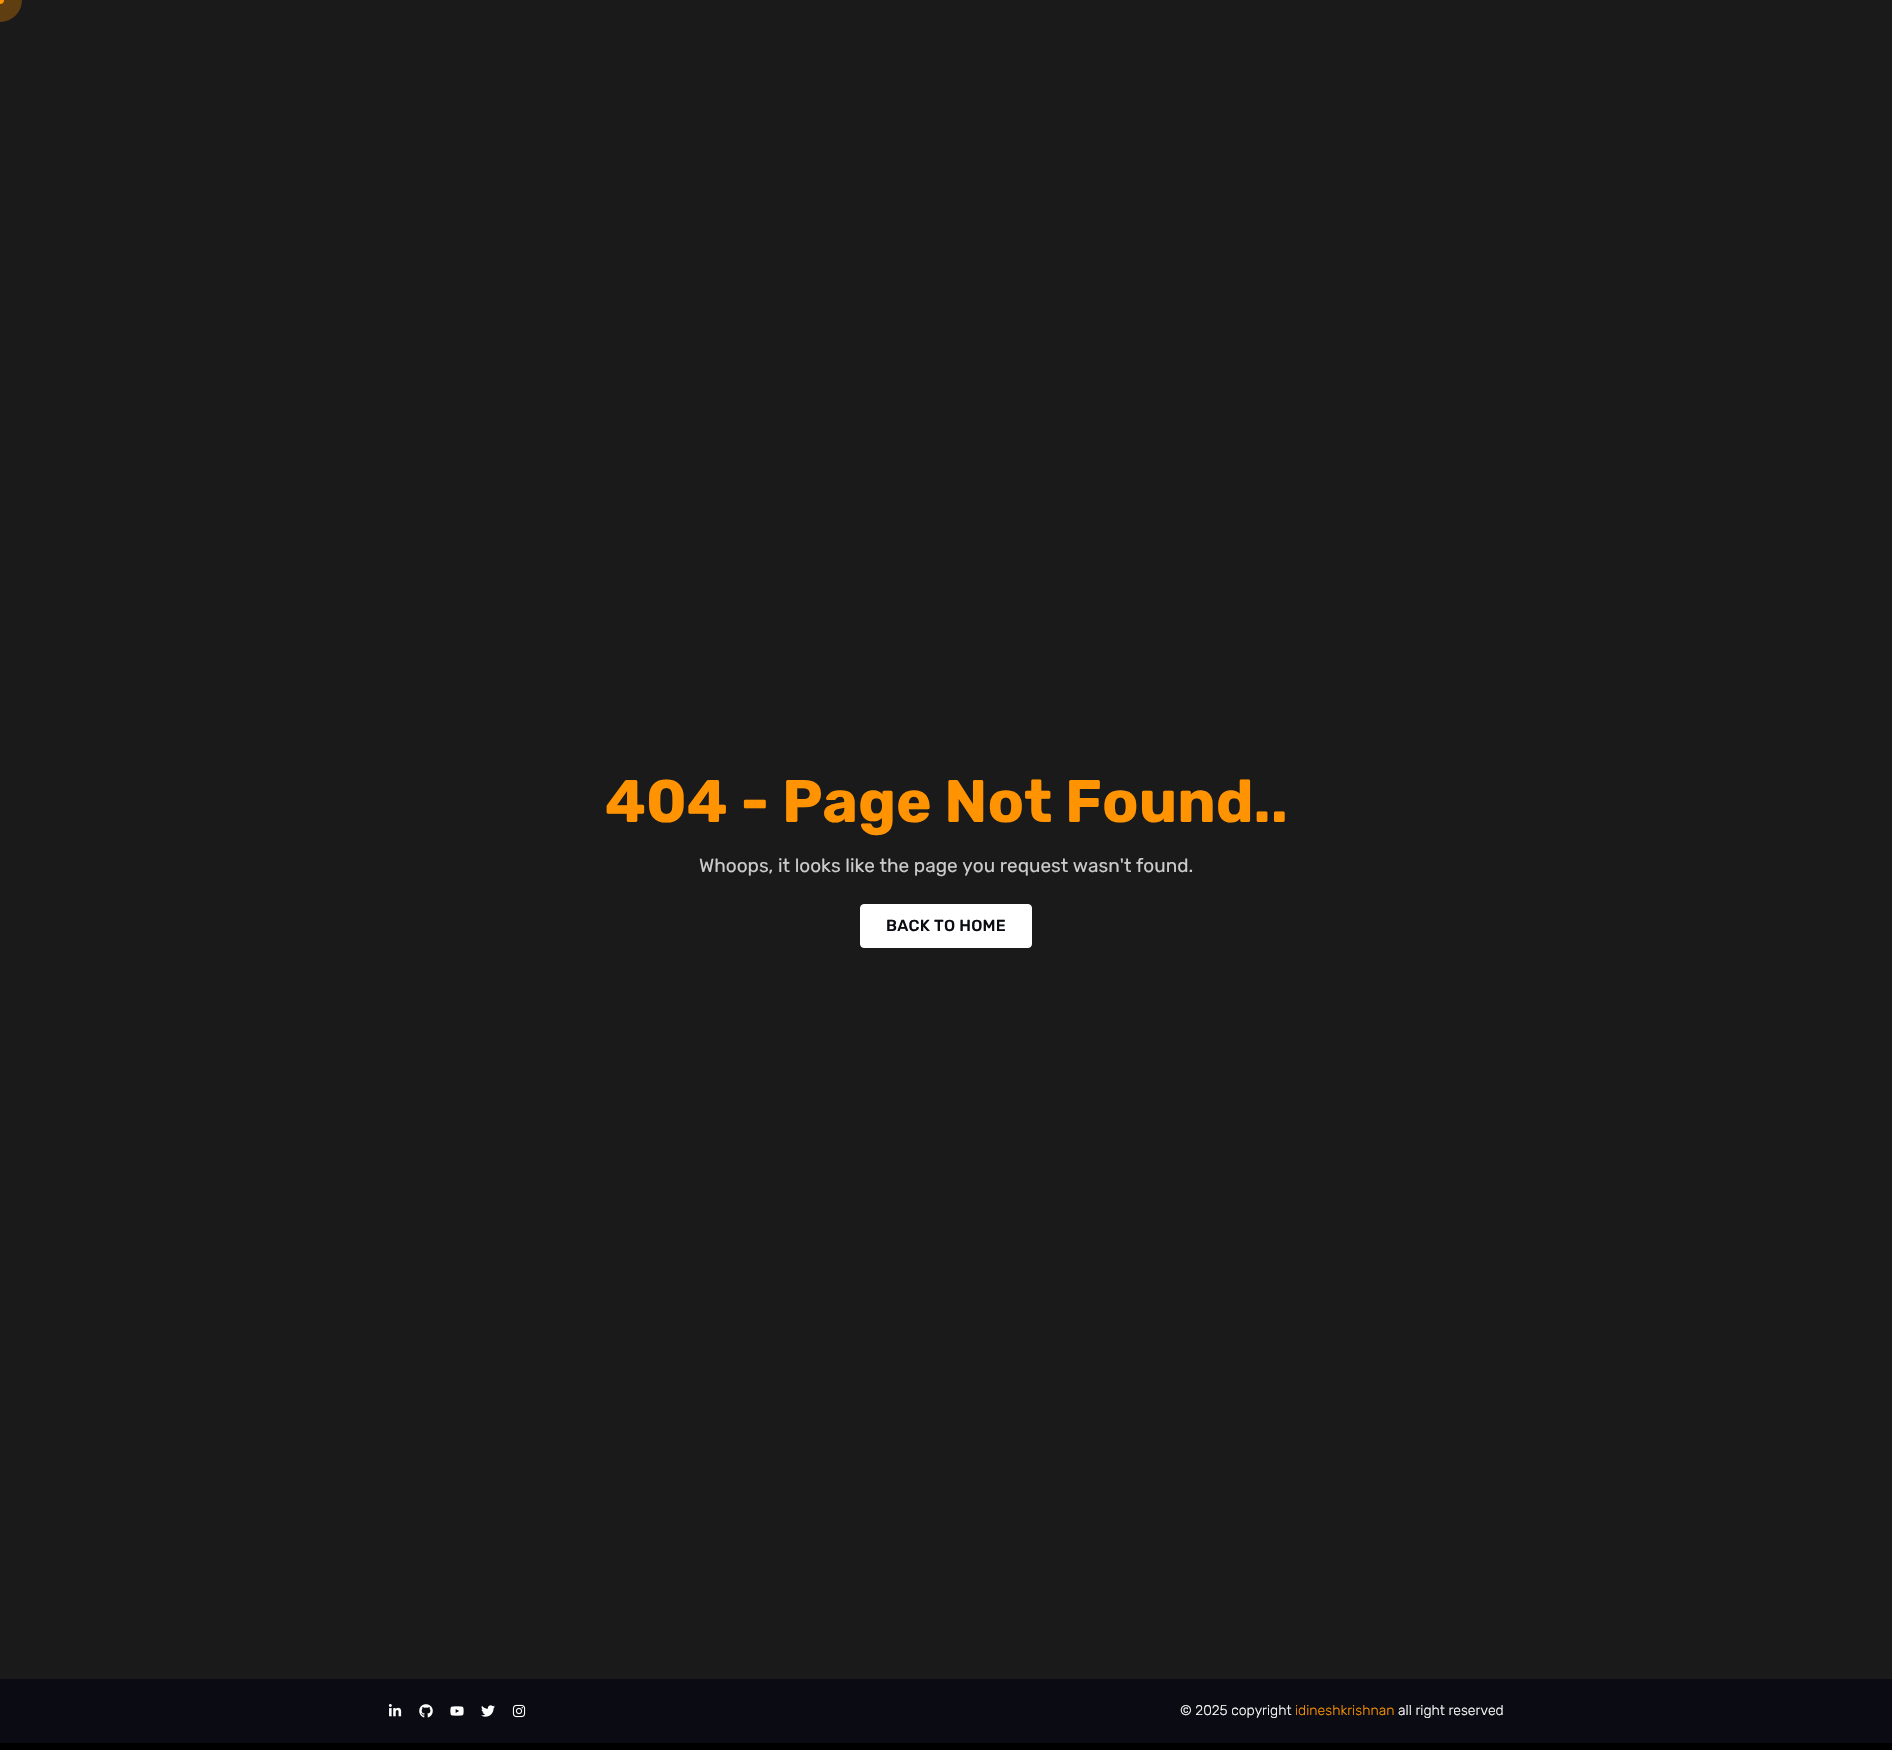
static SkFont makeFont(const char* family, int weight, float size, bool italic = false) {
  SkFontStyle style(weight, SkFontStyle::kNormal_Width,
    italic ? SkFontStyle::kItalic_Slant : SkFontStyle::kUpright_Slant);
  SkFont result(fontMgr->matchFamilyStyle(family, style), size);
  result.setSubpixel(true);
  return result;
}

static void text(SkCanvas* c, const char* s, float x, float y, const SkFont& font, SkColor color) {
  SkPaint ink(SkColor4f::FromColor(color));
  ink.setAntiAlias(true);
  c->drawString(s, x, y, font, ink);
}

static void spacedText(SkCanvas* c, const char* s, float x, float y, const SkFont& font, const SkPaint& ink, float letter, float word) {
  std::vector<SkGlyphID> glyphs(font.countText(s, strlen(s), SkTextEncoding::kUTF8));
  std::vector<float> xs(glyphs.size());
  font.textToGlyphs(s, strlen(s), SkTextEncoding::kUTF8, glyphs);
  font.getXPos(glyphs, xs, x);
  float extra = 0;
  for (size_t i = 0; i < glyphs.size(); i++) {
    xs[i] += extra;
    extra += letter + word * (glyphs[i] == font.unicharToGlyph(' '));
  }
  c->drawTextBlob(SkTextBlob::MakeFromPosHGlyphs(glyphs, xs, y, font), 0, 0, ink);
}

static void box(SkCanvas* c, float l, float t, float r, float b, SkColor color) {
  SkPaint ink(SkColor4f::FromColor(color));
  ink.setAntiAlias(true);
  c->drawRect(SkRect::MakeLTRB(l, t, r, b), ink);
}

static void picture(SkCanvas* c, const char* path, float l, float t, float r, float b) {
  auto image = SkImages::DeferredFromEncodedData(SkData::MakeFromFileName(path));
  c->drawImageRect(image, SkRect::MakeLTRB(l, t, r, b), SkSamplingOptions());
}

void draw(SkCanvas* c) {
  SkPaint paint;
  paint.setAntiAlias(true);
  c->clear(0xff000000);
  box(c, 0, 0, 1892, 1679, 0xff1a1a1a);
  paint.setColor(0xff5f3e12);
  c->drawCircle(0, 0, 22, paint);
  paint.setColor(0xffff9301);
  c->drawCircle(0, 0, 4, paint);
  SkFont face1 = makeFont("Rubik", 700, 60);
  text(c, "404 - Page Not Found..", 605, 822, face1, 0xffff9301);
  SkFont face2 = makeFont("Rubik", 400, 19);
  text(c, "Whoops, it looks like the page you request wasn't found.", 699, 872, face2, 0xffcbcbcb);
  paint.setColor(0xffffffff);
  c->drawRoundRect(SkRect::MakeLTRB(860.5f, 904.5f, 1031.5f, 947.5f), 3.5f, 3.5f, paint);
  paint.setStyle(SkPaint::kStroke_Style);
  paint.setStrokeWidth(1);
  c->drawRoundRect(SkRect::MakeLTRB(860.5f, 904.5f, 1031.5f, 947.5f), 3.5f, 3.5f, paint);
  SkFont face3 = makeFont("Rubik", 500, 16);
  paint.setStyle(SkPaint::kFill_Style);
  paint.setColor(0xff0b0b13);
  spacedText(c, "BACK TO HOME", 886, 931, face3, paint, 0.25f, 0);
  box(c, 0, 1679, 1892, 1743, 0xff0b0b13);
  picture(c, "img_01.png", 388, 1704, 402, 1717);
  picture(c, "img_02.png", 419, 1704, 433, 1718);
  picture(c, "img_03.png", 450, 1706, 464, 1716);
  picture(c, "img_04.png", 481, 1705, 495, 1717);
  picture(c, "img_05.png", 512, 1704, 526, 1718);
  SkFont face4 = makeFont("Rubik", 300, 14);
  text(c, "© 2025 copyright", 1180, 1715, face4, 0xffffffff);
  text(c, "idineshkrishnan", 1295, 1715, face4, 0xffff9301);
  text(c, "all right reserved", 1398, 1715, face4, 0xffffffff);
}
